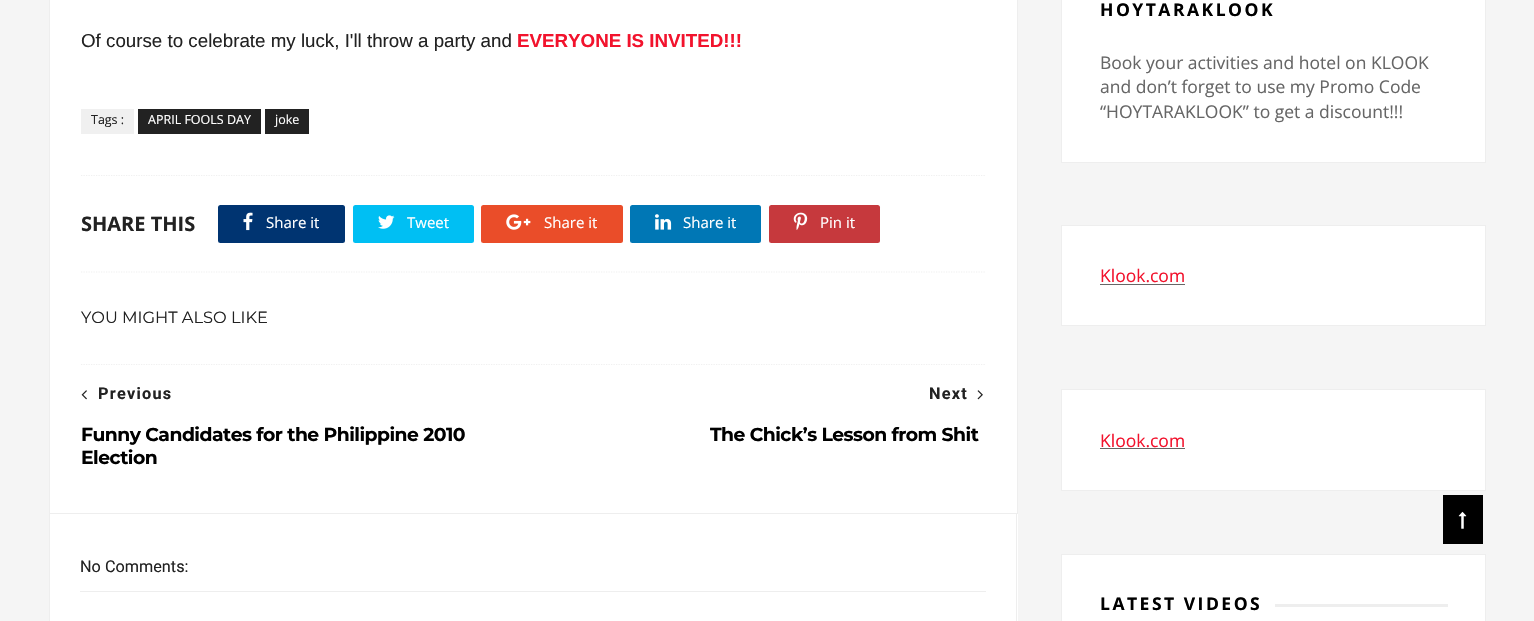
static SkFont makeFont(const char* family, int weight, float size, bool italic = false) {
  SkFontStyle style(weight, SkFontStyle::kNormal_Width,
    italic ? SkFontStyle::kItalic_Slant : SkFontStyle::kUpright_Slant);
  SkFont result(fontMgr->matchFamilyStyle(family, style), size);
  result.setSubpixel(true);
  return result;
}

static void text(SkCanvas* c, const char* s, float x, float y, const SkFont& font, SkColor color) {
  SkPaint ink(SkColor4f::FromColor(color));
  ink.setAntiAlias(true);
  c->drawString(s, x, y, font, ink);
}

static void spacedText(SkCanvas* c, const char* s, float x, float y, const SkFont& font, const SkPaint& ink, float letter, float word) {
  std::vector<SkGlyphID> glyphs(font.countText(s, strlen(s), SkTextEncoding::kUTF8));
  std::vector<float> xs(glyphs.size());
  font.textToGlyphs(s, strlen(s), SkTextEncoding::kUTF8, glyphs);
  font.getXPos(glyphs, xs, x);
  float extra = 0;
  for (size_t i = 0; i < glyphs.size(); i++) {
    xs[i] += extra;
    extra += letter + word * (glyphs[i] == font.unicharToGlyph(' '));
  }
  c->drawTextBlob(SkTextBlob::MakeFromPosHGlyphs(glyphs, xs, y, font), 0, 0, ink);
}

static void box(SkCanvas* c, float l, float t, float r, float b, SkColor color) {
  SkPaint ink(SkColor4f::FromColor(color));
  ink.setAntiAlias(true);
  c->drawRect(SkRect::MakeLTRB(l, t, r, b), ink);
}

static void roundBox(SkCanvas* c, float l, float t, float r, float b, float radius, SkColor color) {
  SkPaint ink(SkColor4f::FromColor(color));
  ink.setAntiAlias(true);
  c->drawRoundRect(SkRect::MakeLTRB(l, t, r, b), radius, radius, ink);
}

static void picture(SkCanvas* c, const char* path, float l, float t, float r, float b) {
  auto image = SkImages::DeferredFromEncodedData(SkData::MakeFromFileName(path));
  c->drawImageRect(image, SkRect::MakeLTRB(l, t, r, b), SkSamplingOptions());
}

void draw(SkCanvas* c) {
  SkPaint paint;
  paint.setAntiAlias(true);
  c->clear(0xfff5f5f5);
  paint.setColor(0xffffffff);
  c->drawRect(SkRect::MakeLTRB(49.5f, -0.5f, 1017.5f, 513.5f), paint);
  paint.setStyle(SkPaint::kStroke_Style);
  paint.setStrokeWidth(1);
  paint.setColor(0xffeeeeee);
  c->drawRect(SkRect::MakeLTRB(49.5f, -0.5f, 1017.5f, 513.5f), paint);
  SkFont face1 = makeFont("Liberation Sans", 400, 18.75f);
  text(c, "Of course to celebrate my luck, I'll throw a party and", 81, 47, face1, 0xff222222);
  SkFont face2 = makeFont("Liberation Sans", 700, 18.75f);
  text(c, "EVERYONE IS INVITED!!!", 517, 47, face2, 0xfff2132d);
  box(c, 81, 109, 134, 134, 0xfff0f0f0);
  SkFont face3 = makeFont("Open Sans", 400, 12.5f);
  text(c, "Tags :", 91, 124, face3, 0xff222222);
  box(c, 138, 109, 261, 134, 0xff222222);
  text(c, "APRIL FOOLS DAY", 148, 124, face3, 0xffffffff);
  box(c, 265, 109, 309, 134, 0xff222222);
  text(c, "joke", 275, 124, face3, 0xffffffff);
  paint.setStrokeWidth(1.2f);
  paint.setColor(0xfff0f0f0);
  paint.setPathEffect(SkDashPathEffect::Make({{1.25f, 1.25f}}, 0));
  c->drawPath(SkPathBuilder().moveTo(81, 175.5f).lineTo(985, 175.5f).detach(), paint);
  paint.setPathEffect(nullptr);
  paint.setPathEffect(SkDashPathEffect::Make({{1.25f, 1.25f}}, 0));
  c->drawPath(SkPathBuilder().moveTo(81, 272).lineTo(985, 272).detach(), paint);
  paint.setPathEffect(nullptr);
  SkFont face4 = makeFont("Open Sans", 700, 20);
  text(c, "SHARE THIS", 81, 231, face4, 0xff222222);
  roundBox(c, 218, 205, 345, 243, 2.5f, 0xff003471);
  picture(c, "img_01.png", 243, 212, 253, 231);
  SkFont face5 = makeFont("Open Sans", 400, 15);
  text(c, "Share it", 266, 228, face5, 0xffffffff);
  roundBox(c, 353, 205, 474, 243, 2.5f, 0xff00bff3);
  picture(c, "img_02.png", 378, 215, 395, 229);
  text(c, "Tweet", 407, 228, face5, 0xffffffff);
  roundBox(c, 481, 205, 623, 243, 2.5f, 0xffea4d29);
  picture(c, "img_03.png", 506, 214, 531, 230);
  text(c, "Share it", 544, 228, face5, 0xffffffff);
  roundBox(c, 630, 205, 761, 243, 2.5f, 0xff0077b5);
  picture(c, "img_04.png", 655, 214, 672, 230);
  text(c, "Share it", 683, 228, face5, 0xffffffff);
  roundBox(c, 769, 205, 880, 243, 2.5f, 0xffc6393d);
  picture(c, "img_05.png", 793, 212, 808, 230);
  text(c, "Pin it", 820, 228, face5, 0xffffffff);
  SkFont face6 = makeFont("Montserrat", 400, 16.25f);
  text(c, "YOU MIGHT ALSO LIKE", 81, 323, face6, 0xff222222);
  paint.setPathEffect(SkDashPathEffect::Make({{1.25f, 1.25f}}, 0));
  c->drawPath(SkPathBuilder().moveTo(81, 364.5f).lineTo(985, 364.5f).detach(), paint);
  paint.setPathEffect(nullptr);
  picture(c, "img_06.png", 81, 390, 87, 400);
  SkFont face7 = makeFont("Roboto", 700, 16.25f);
  paint.setStyle(SkPaint::kFill_Style);
  paint.setColor(0xff222222);
  spacedText(c, "Previous", 98, 399, face7, paint, 1.25f, 0);
  SkFont face8 = makeFont("Montserrat", 700, 18.75f);
  paint.setColor(0xff000000);
  spacedText(c, "Funny Candidates for the Philippine 2010", 81, 441, face8, paint, -0.5f, 0);
  spacedText(c, "Election", 81, 464, face8, paint, -0.5f, 0);
  paint.setColor(0xff222222);
  spacedText(c, "Next", 929, 399, face7, paint, 1.25f, 0);
  picture(c, "img_07.png", 977, 390, 983, 400);
  paint.setColor(0xff000000);
  spacedText(c, "The Chick’s Lesson from Shit", 710, 441, face8, paint, -0.5f, 0);
  box(c, 50, 514, 1018, 621, 0xffffffff);
  box(c, 1016, 514, 1017, 621, 0xffeeeeee);
  box(c, 49, 514, 50, 621, 0xffeeeeee);
  box(c, 80, 591, 986, 592, 0xffeeeeee);
  SkFont face9 = makeFont("Roboto", 400, 16.25f);
  text(c, "No Comments:", 80, 572, face9, 0xff222222);
  paint.setColor(0xffffffff);
  c->drawRect(SkRect::MakeLTRB(1061.5f, -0.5f, 1485.5f, 162.5f), paint);
  paint.setStyle(SkPaint::kStroke_Style);
  paint.setStrokeWidth(1);
  paint.setColor(0xffeeeeee);
  c->drawRect(SkRect::MakeLTRB(1061.5f, -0.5f, 1485.5f, 162.5f), paint);
  SkFont face10 = makeFont("Open Sans", 700, 17.5f);
  paint.setStyle(SkPaint::kFill_Style);
  paint.setColor(0xff000000);
  spacedText(c, "HOYTARAKLOOK", 1100, 16, face10, paint, 2.5f, 0);
  SkFont face11 = makeFont("Open Sans", 400, 17.5f);
  text(c, "Book your activities and hotel on KLOOK", 1100, 69, face11, 0xff666666);
  text(c, "and don’t forget to use my Promo Code", 1100, 93, face11, 0xff666666);
  text(c, "“HOYTARAKLOOK” to get a discount!!!", 1100, 118, face11, 0xff666666);
  paint.setColor(0xffffffff);
  c->drawRect(SkRect::MakeLTRB(1061.5f, 225.5f, 1485.5f, 325.5f), paint);
  paint.setStyle(SkPaint::kStroke_Style);
  paint.setColor(0xffeeeeee);
  c->drawRect(SkRect::MakeLTRB(1061.5f, 225.5f, 1485.5f, 325.5f), paint);
  text(c, "Klook.com", 1100, 282, face11, 0xfff2132d);
  box(c, 1100, 284, 1185, 285, 0xff666666);
  paint.setStyle(SkPaint::kFill_Style);
  paint.setColor(0xffffffff);
  c->drawRect(SkRect::MakeLTRB(1061.5f, 389.5f, 1485.5f, 490.5f), paint);
  paint.setStyle(SkPaint::kStroke_Style);
  paint.setColor(0xffeeeeee);
  c->drawRect(SkRect::MakeLTRB(1061.5f, 389.5f, 1485.5f, 490.5f), paint);
  text(c, "Klook.com", 1100, 447, face11, 0xfff2132d);
  box(c, 1100, 448, 1185, 449, 0xff666666);
  paint.setStyle(SkPaint::kFill_Style);
  paint.setColor(0xffffffff);
  c->drawRect(SkRect::MakeLTRB(1061.5f, 554.5f, 1485.5f, 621.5f), paint);
  paint.setStyle(SkPaint::kStroke_Style);
  paint.setColor(0xffeeeeee);
  c->drawRect(SkRect::MakeLTRB(1061.5f, 554.5f, 1485.5f, 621.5f), paint);
  paint.setStyle(SkPaint::kFill_Style);
  paint.setColor(0xff000000);
  spacedText(c, "LATEST VIDEOS", 1100, 610, face10, paint, 2.5f, 0);
  box(c, 1275, 604, 1448, 607, 0xffeeeeee);
  box(c, 1443, 495, 1483, 544, 0xff000000);
  picture(c, "img_08.png", 1458, 511, 1467, 529);
}
